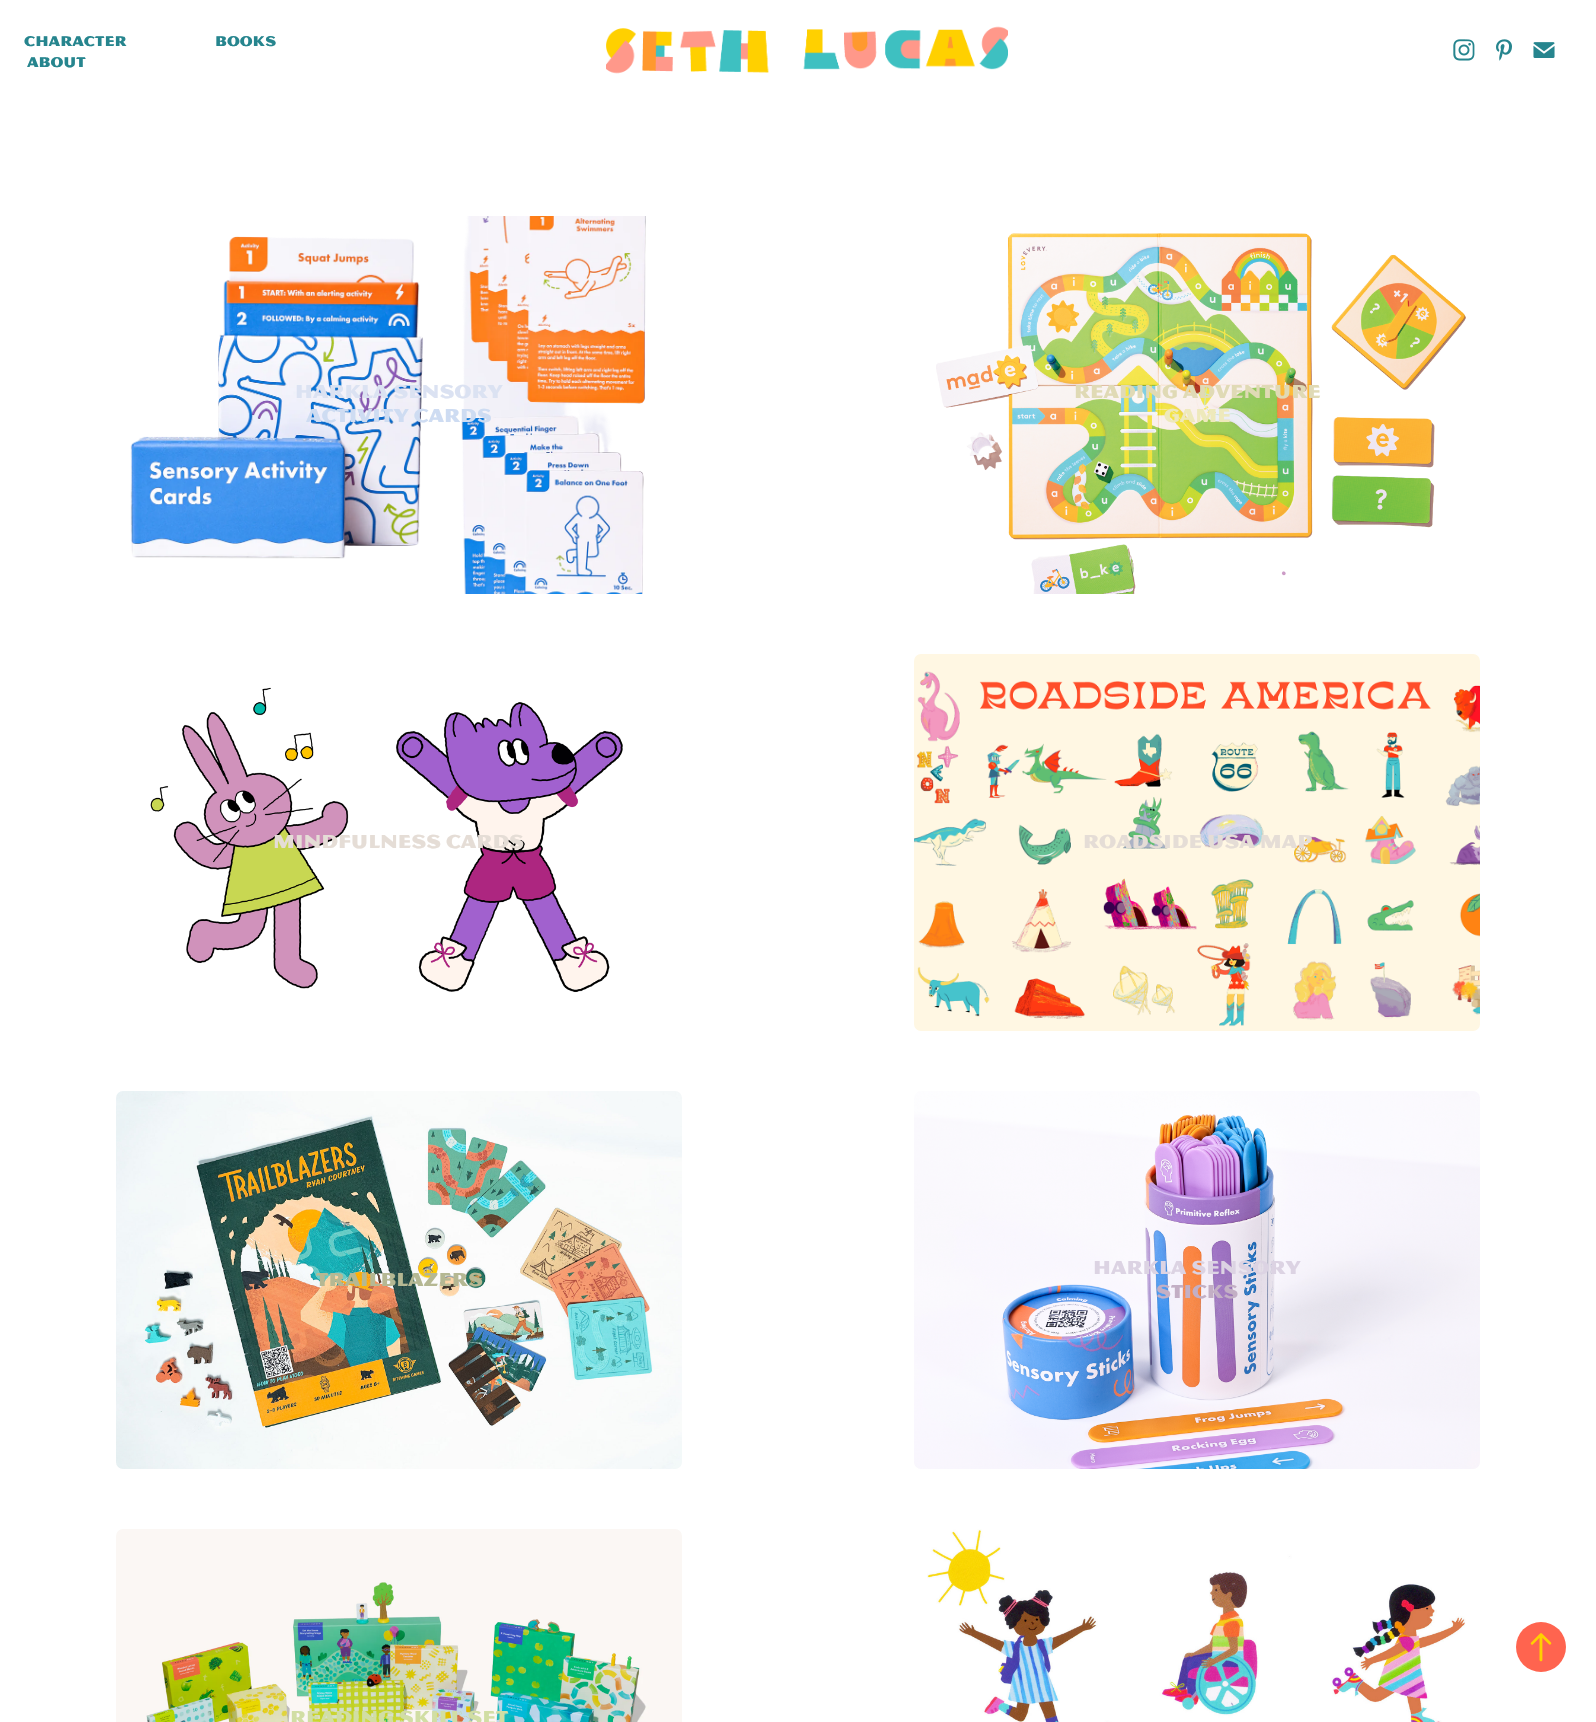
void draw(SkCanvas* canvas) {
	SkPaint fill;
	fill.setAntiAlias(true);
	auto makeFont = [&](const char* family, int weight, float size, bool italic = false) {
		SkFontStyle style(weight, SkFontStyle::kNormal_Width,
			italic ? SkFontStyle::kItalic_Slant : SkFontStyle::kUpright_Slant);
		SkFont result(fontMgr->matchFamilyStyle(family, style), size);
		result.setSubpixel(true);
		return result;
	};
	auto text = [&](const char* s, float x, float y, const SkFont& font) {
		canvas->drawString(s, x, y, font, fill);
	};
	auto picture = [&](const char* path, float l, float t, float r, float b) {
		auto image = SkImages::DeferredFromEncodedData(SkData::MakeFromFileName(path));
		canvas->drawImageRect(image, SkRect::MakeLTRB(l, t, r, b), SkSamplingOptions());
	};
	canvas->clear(0xFFFFFFFF);
	picture("image0.png", 606, 26, 1008, 74);
	picture("image1.png", 1453, 39, 1475, 61);
	picture("image2.png", 1496, 39, 1512, 61);
	picture("image3.png", 1533, 42, 1555, 58);
	picture("image4.png", 130, 216, 646, 594);
	picture("image5.png", 936, 233, 1466, 594);
	picture("image6.png", 150, 687, 623, 993);
	picture("image7.png", 914, 654, 1480, 1031);
	picture("image8.png", 116, 1091, 682, 1469);
	picture("image9.png", 914, 1091, 1480, 1469);
	picture("image10.png", 116, 1529, 682, 1722);
	picture("image11.png", 927, 1529, 1466, 1722);
	fill.setColor(0xFFFF644F);
	canvas->drawCircle(1541, 1647, 25, fill);
	picture("image12.png", 1530, 1633, 1552, 1662);
	auto font1 = makeFont("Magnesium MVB", 400, 15);
	fill.setColor(0xFF26858E);
	text("Character", 24, 46, font1);
	text("Books", 215, 46, font1);
	text("About", 27, 67, font1);
	auto font2 = makeFont("Magnesium MVB", 400, 20);
	fill.setColor(0xFFDBE2F2);
	text("Harkla Sensory", 295, 398, font2);
	fill.setColor(0xFFCEDCF2);
	text("Activity Cards", 306, 422, font2);
	fill.setColor(0xFFE0DAB5);
	text("Reading Adventure", 1074, 398, font2);
	fill.setColor(0xFFEEE9BB);
	text("Game", 1164, 422, font2);
	fill.setColor(0xFFE5DDD6);
	text("Mindfulness Cards", 273, 848, font2);
	text("Roadside USA map", 1083, 848, font2);
	fill.setColor(0xFFB5B893);
	text("Trailblazers", 316, 1286, font2);
	fill.setColor(0xFFDCD3E3);
	text("Harkla Sensory", 1093, 1274, font2);
	fill.setColor(0xFFC3AFC5);
	text("Sticks", 1156, 1298, font2);
	fill.setColor(0xFFD1DEA4);
	text("Reading Skill Set", 290, 1724, font2);
}
